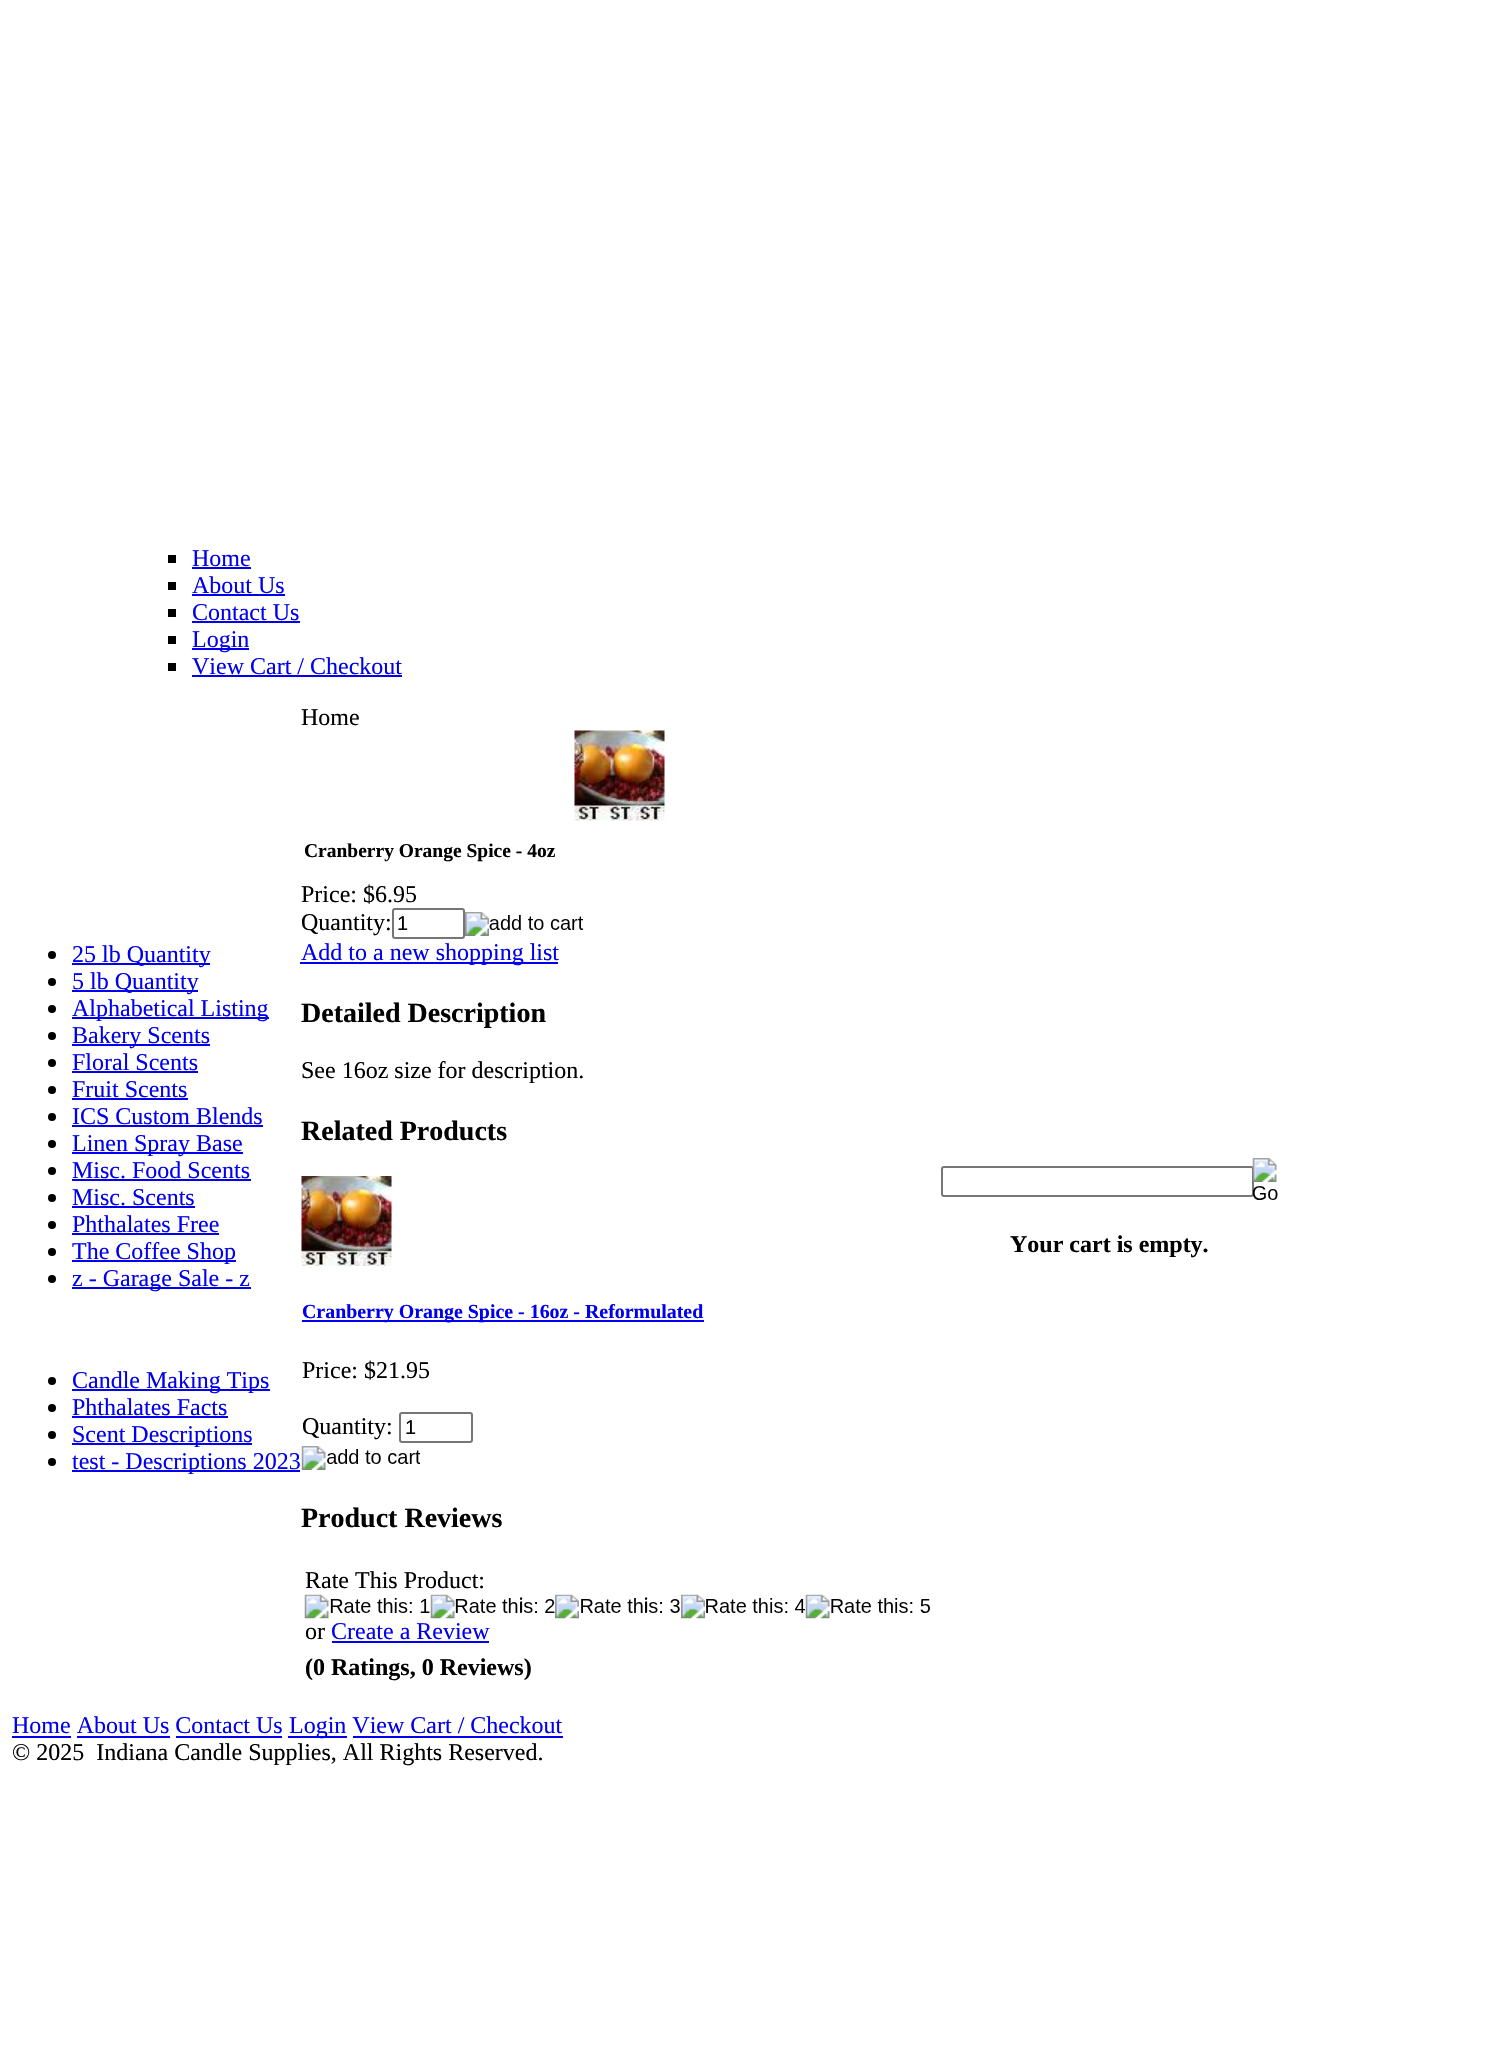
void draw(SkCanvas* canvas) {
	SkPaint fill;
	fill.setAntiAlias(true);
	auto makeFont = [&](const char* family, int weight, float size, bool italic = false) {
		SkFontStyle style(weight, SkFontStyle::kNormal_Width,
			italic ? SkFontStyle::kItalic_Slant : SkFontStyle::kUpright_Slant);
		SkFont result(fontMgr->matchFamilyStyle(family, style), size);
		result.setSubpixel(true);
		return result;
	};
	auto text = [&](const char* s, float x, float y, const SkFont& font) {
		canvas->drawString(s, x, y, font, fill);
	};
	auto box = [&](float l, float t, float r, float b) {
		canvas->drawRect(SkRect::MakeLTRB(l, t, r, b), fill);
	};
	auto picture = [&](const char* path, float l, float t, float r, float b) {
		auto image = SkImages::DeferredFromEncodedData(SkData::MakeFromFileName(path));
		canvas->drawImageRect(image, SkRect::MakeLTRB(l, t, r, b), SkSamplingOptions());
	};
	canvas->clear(0xFFFFFFFF);
	fill.setColor(0xFF000000);
	box(168, 555, 176, 563);
	fill.setColor(0xFF0000EE);
	box(192, 567, 251, 569);
	fill.setColor(0xFF000000);
	box(168, 582, 176, 590);
	fill.setColor(0xFF0000EE);
	box(192, 594, 285, 596);
	fill.setColor(0xFF000000);
	box(168, 609, 176, 617);
	fill.setColor(0xFF0000EE);
	box(192, 621, 300, 623);
	fill.setColor(0xFF000000);
	box(168, 636, 176, 644);
	fill.setColor(0xFF0000EE);
	box(192, 648, 249, 650);
	fill.setColor(0xFF000000);
	box(168, 663, 176, 671);
	fill.setColor(0xFF0000EE);
	box(192, 675, 402, 677);
	fill.setColor(0xFF000000);
	canvas->drawCircle(52, 955, 4, fill);
	fill.setColor(0xFF0000EE);
	box(72, 963, 210, 965);
	fill.setColor(0xFF000000);
	canvas->drawCircle(52, 982, 4, fill);
	fill.setColor(0xFF0000EE);
	box(72, 990, 198, 992);
	fill.setColor(0xFF000000);
	canvas->drawCircle(52, 1009, 4, fill);
	fill.setColor(0xFF0000EE);
	box(72, 1017, 269, 1019);
	fill.setColor(0xFF000000);
	canvas->drawCircle(52, 1036, 4, fill);
	fill.setColor(0xFF0000EE);
	box(72, 1044, 210, 1046);
	fill.setColor(0xFF000000);
	canvas->drawCircle(52, 1063, 4, fill);
	fill.setColor(0xFF0000EE);
	box(72, 1071, 198, 1073);
	fill.setColor(0xFF000000);
	canvas->drawCircle(52, 1090, 4, fill);
	fill.setColor(0xFF0000EE);
	box(72, 1098, 188, 1100);
	fill.setColor(0xFF000000);
	canvas->drawCircle(52, 1117, 4, fill);
	fill.setColor(0xFF0000EE);
	box(72, 1125, 263, 1127);
	fill.setColor(0xFF000000);
	canvas->drawCircle(52, 1144, 4, fill);
	fill.setColor(0xFF0000EE);
	box(72, 1152, 243, 1154);
	fill.setColor(0xFF000000);
	canvas->drawCircle(52, 1171, 4, fill);
	fill.setColor(0xFF0000EE);
	box(72, 1179, 251, 1181);
	fill.setColor(0xFF000000);
	canvas->drawCircle(52, 1198, 4, fill);
	fill.setColor(0xFF0000EE);
	box(72, 1206, 195, 1208);
	fill.setColor(0xFF000000);
	canvas->drawCircle(52, 1225, 4, fill);
	fill.setColor(0xFF0000EE);
	box(72, 1233, 219, 1235);
	fill.setColor(0xFF000000);
	canvas->drawCircle(52, 1252, 4, fill);
	fill.setColor(0xFF0000EE);
	box(72, 1260, 236, 1262);
	fill.setColor(0xFF000000);
	canvas->drawCircle(52, 1279, 4, fill);
	fill.setColor(0xFF0000EE);
	box(72, 1287, 251, 1289);
	fill.setColor(0xFF000000);
	canvas->drawCircle(52, 1381, 4, fill);
	fill.setColor(0xFF0000EE);
	box(72, 1389, 270, 1391);
	fill.setColor(0xFF000000);
	canvas->drawCircle(52, 1408, 4, fill);
	fill.setColor(0xFF0000EE);
	box(72, 1416, 228, 1418);
	fill.setColor(0xFF000000);
	canvas->drawCircle(52, 1435, 4, fill);
	fill.setColor(0xFF0000EE);
	box(72, 1443, 252, 1445);
	fill.setColor(0xFF000000);
	canvas->drawCircle(52, 1462, 4, fill);
	fill.setColor(0xFF0000EE);
	box(72, 1470, 300, 1472);
	picture("image0.png", 574, 730, 665, 821);
	fill.setStyle(SkPaint::kStroke_Style);
	fill.setStrokeWidth(2);
	fill.setColor(0xFF767676);
	canvas->drawRoundRect(SkRect::MakeLTRB(393, 909, 464, 938), 2, 2, fill);
	picture("image1.png", 465, 912, 584, 936);
	fill.setStyle(SkPaint::kFill_Style);
	fill.setColor(0xFF0000EE);
	box(300, 962, 558, 964);
	picture("image2.png", 301, 1176, 392, 1266);
	box(302, 1320, 704, 1322);
	fill.setStyle(SkPaint::kStroke_Style);
	fill.setColor(0xFF767676);
	canvas->drawRoundRect(SkRect::MakeLTRB(400, 1413, 472, 1442), 2, 2, fill);
	picture("image3.png", 301, 1446, 420, 1470);
	picture("image4.png", 304, 1594, 430, 1619);
	picture("image5.png", 430, 1594, 555, 1619);
	picture("image6.png", 555, 1594, 680, 1619);
	picture("image7.png", 681, 1594, 805, 1619);
	picture("image8.png", 805, 1594, 930, 1619);
	fill.setStyle(SkPaint::kFill_Style);
	fill.setColor(0xFF0000EE);
	box(332, 1641, 489, 1643);
	fill.setStyle(SkPaint::kStroke_Style);
	fill.setColor(0xFF767676);
	canvas->drawRoundRect(SkRect::MakeLTRB(942, 1167, 1253, 1196), 2, 2, fill);
	picture("image9.png", 1252, 1158, 1278, 1200);
	fill.setStyle(SkPaint::kFill_Style);
	fill.setColor(0xFF0000EE);
	box(12, 1736, 71, 1738);
	box(288, 1736, 347, 1738);
	box(77, 1736, 170, 1738);
	box(176, 1736, 282, 1738);
	box(353, 1736, 563, 1738);
	auto font1 = makeFont("Liberation Serif", 400, 24);
	text("Home", 192, 566, font1);
	text("About Us", 192, 593, font1);
	text("Contact Us", 192, 620, font1);
	text("Login", 192, 647, font1);
	text("View Cart / Checkout", 192, 674, font1);
	text("25 lb Quantity", 72, 962, font1);
	text("5 lb Quantity", 72, 989, font1);
	text("Alphabetical Listing", 72, 1016, font1);
	text("Bakery Scents", 72, 1043, font1);
	text("Floral Scents", 72, 1070, font1);
	text("Fruit Scents", 72, 1097, font1);
	text("ICS Custom Blends", 72, 1124, font1);
	text("Linen Spray Base", 72, 1151, font1);
	text("Misc. Food Scents", 72, 1178, font1);
	text("Misc. Scents", 72, 1205, font1);
	text("Phthalates Free", 72, 1232, font1);
	text("The Coffee Shop", 72, 1259, font1);
	text("z - Garage Sale - z", 72, 1286, font1);
	text("Candle Making Tips", 72, 1388, font1);
	text("Phthalates Facts", 72, 1415, font1);
	text("Scent Descriptions", 72, 1442, font1);
	text("test - Descriptions 2023", 72, 1469, font1);
	fill.setColor(0xFF000000);
	text("Home", 301, 725, font1);
	auto font2 = makeFont("Liberation Serif", 700, 19.5f);
	text("Cranberry Orange Spice - 4oz", 304, 857, font2);
	text("Price: $6.95", 301, 902, font1);
	text("Quantity:", 301, 930, font1);
	auto font3 = makeFont("Liberation Sans", 400, 20);
	text("1", 397, 930, font3);
	fill.setColor(0xFF0000EE);
	text("Add to a new shopping list", 301, 960, font1);
	auto font4 = makeFont("Liberation Serif", 700, 28);
	fill.setColor(0xFF000000);
	text("Detailed Description", 301, 1022, font4);
	text("See 16oz size for description.", 301, 1078, font1);
	text("Related Products", 301, 1140, font4);
	auto font5 = makeFont("Liberation Serif", 700, 19.9f);
	fill.setColor(0xFF0000EE);
	text("Cranberry Orange Spice - 16oz - Reformulated", 302, 1318, font5);
	fill.setColor(0xFF000000);
	text("Price: $21.95", 302, 1378, font1);
	text("Quantity:", 302, 1434, font1);
	text("1", 405, 1434, font3);
	text("Product Reviews", 301, 1527, font4);
	text("Rate This Product:", 305, 1588, font1);
	text("i", 519, 1612, font3);
	text("i", 644, 1612, font3);
	text("or", 305, 1639, font1);
	fill.setColor(0xFF0000EE);
	text("Create a Review", 331, 1639, font1);
	auto font6 = makeFont("Liberation Serif", 700, 24);
	fill.setColor(0xFF000000);
	text("(0 Ratings, 0 Reviews)", 305, 1675, font6);
	text("Your cart is empty.", 1010, 1252, font6);
	fill.setColor(0xFF0000EE);
	text("Home About Us Contact Us", 12, 1733, font1);
	text("Login View Cart / Checkout", 289, 1733, font1);
	fill.setColor(0xFF000000);
	text("© 2025  Indiana Candle Supplies, All Rights Reserved.", 12, 1760, font1);
}
